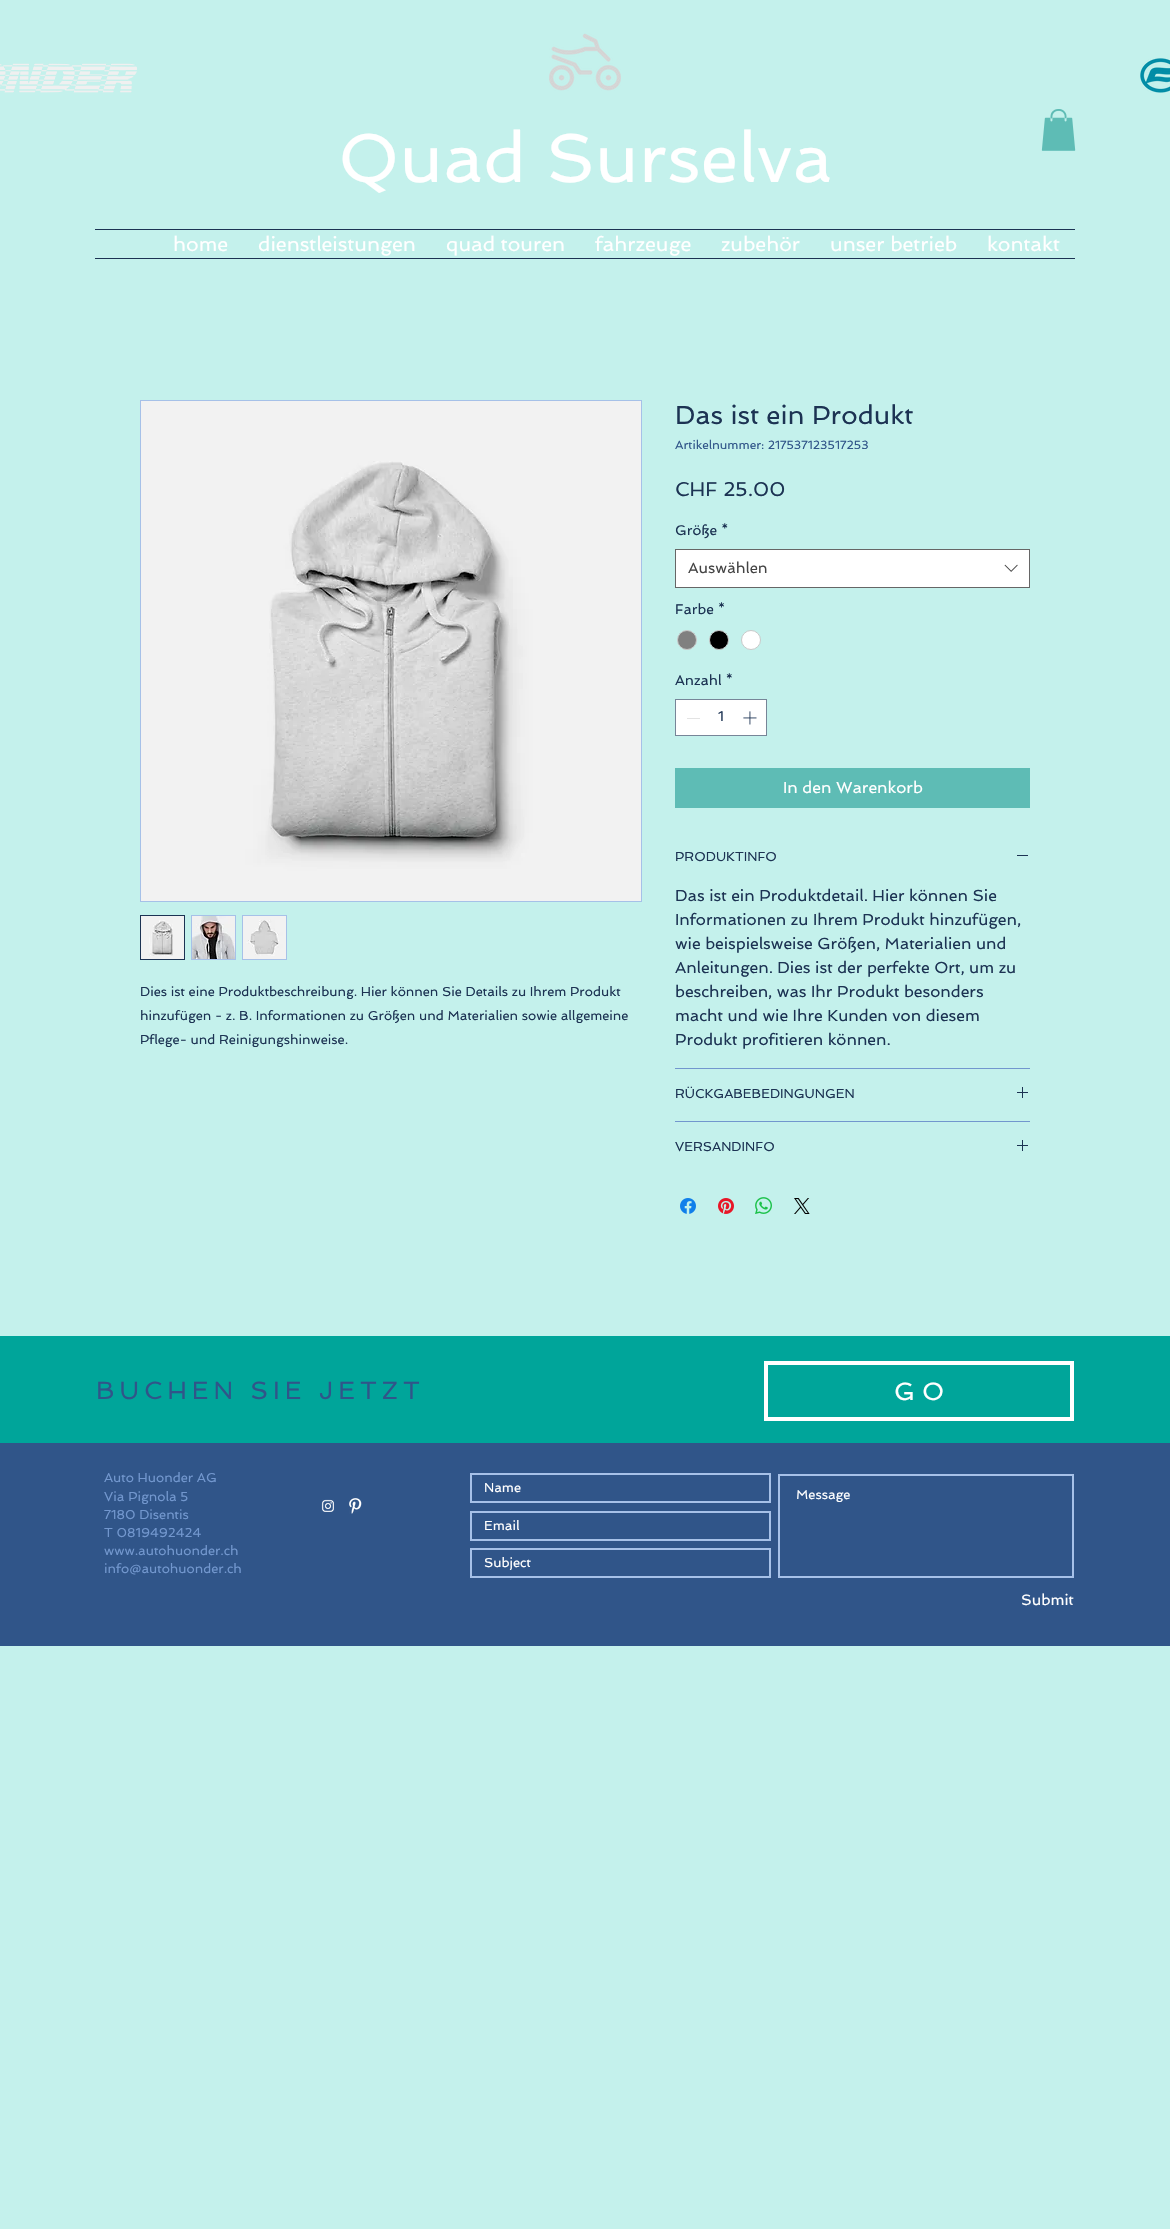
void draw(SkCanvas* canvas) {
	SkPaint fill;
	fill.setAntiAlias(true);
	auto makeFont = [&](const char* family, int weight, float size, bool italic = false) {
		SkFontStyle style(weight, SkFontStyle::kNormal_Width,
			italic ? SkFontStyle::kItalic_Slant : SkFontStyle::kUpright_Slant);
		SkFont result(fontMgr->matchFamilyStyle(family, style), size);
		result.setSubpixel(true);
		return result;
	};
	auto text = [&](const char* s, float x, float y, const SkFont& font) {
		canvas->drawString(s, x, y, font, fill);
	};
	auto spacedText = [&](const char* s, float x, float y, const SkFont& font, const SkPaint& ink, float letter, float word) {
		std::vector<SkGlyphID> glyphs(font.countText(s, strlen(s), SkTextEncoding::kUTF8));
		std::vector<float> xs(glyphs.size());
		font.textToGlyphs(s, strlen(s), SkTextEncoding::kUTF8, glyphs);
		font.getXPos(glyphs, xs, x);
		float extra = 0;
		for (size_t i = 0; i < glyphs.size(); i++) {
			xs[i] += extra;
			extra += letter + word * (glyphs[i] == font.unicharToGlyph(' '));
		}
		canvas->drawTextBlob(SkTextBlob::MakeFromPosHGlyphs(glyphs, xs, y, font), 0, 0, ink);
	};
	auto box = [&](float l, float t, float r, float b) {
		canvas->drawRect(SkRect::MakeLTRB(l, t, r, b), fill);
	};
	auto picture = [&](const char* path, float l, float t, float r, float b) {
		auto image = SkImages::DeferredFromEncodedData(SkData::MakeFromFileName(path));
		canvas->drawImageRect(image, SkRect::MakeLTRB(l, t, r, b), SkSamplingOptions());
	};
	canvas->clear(0xFFC4F1EC);
	picture("image0.png", 0, 63, 137, 93);
	picture("image1.png", 549, 33, 621, 91);
	picture("image2.png", 1140, 58, 1170, 93);
	picture("image3.png", 1041, 109, 1076, 151);
	fill.setColor(0xFF1C3353);
	box(95, 229, 1075, 230);
	box(95, 258, 1075, 259);
	fill.setStyle(SkPaint::kStroke_Style);
	fill.setStrokeWidth(1);
	fill.setColor(0xFFA6C1E8);
	canvas->drawRect(SkRect::MakeLTRB(140.5f, 400.5f, 641.5f, 901.5f), fill);
	picture("image4.png", 141, 401, 641, 901);
	fill.setColor(0xFF1C3353);
	canvas->drawRect(SkRect::MakeLTRB(140.5f, 915.5f, 184.5f, 959.5f), fill);
	picture("image5.png", 141, 916, 184, 959);
	fill.setStyle(SkPaint::kFill_Style);
	fill.setColor(0xFFA6C1E8);
	box(191, 915, 236, 960);
	picture("image6.png", 192, 916, 235, 959);
	box(242, 915, 287, 960);
	picture("image7.png", 243, 916, 286, 959);
	fill.setColor(0xFFFFFFFF);
	canvas->drawRect(SkRect::MakeLTRB(675.5f, 549.5f, 1029.5f, 587.5f), fill);
	fill.setStyle(SkPaint::kStroke_Style);
	fill.setColor(0xFF666666);
	canvas->drawRect(SkRect::MakeLTRB(675.5f, 549.5f, 1029.5f, 587.5f), fill);
	picture("image8.png", 1004, 564, 1018, 572);
	fill.setStyle(SkPaint::kFill_Style);
	fill.setColor(0xFF808080);
	canvas->drawCircle(687, 640, 9.5f, fill);
	fill.setStyle(SkPaint::kStroke_Style);
	fill.setColor(0xFFC9C9C9);
	canvas->drawCircle(687, 640, 9.5f, fill);
	fill.setStyle(SkPaint::kFill_Style);
	fill.setColor(0xFF000000);
	canvas->drawCircle(719, 640, 9.5f, fill);
	fill.setStyle(SkPaint::kStroke_Style);
	fill.setColor(0xFFC9C9C9);
	canvas->drawCircle(719, 640, 9.5f, fill);
	fill.setStyle(SkPaint::kFill_Style);
	fill.setColor(0xFFFFFFFF);
	canvas->drawCircle(751, 640, 9.5f, fill);
	fill.setStyle(SkPaint::kStroke_Style);
	fill.setColor(0xFFC9C9C9);
	canvas->drawCircle(751, 640, 9.5f, fill);
	fill.setStyle(SkPaint::kFill_Style);
	fill.setColor(0xFFFFFFFF);
	canvas->drawRect(SkRect::MakeLTRB(675.5f, 699.5f, 766.5f, 735.5f), fill);
	fill.setStyle(SkPaint::kStroke_Style);
	fill.setColor(0xFF778598);
	canvas->drawRect(SkRect::MakeLTRB(675.5f, 699.5f, 766.5f, 735.5f), fill);
	fill.setStyle(SkPaint::kFill_Style);
	fill.setColor(0xFFE3E3E3);
	box(687, 718, 700, 719);
	picture("image9.png", 743, 711, 757, 725);
	fill.setColor(0xFF5EBCB5);
	box(675, 768, 1030, 808);
	fill.setColor(0xFF7297CE);
	box(675, 1068, 1030, 1069);
	fill.setColor(0xFF1C3353);
	box(1017, 855, 1028, 856);
	fill.setColor(0xFF7297CE);
	box(675, 1121, 1030, 1122);
	picture("image10.png", 1017, 1087, 1028, 1098);
	picture("image10.png", 1017, 1140, 1028, 1151);
	picture("image11.png", 680, 1198, 696, 1214);
	picture("image12.png", 718, 1198, 734, 1214);
	picture("image13.png", 755, 1197, 772, 1214);
	picture("image14.png", 794, 1198, 810, 1214);
	fill.setColor(0xFF00A59A);
	box(0, 1336, 1170, 1443);
	fill.setStyle(SkPaint::kStroke_Style);
	fill.setStrokeWidth(4);
	fill.setColor(0xFFFFFFFF);
	canvas->drawRect(SkRect::MakeLTRB(766, 1363, 1072, 1419), fill);
	fill.setStyle(SkPaint::kFill_Style);
	fill.setColor(0xFF305589);
	box(0, 1443, 1170, 1646);
	picture("image15.png", 321, 1499, 334, 1512);
	picture("image16.png", 349, 1498, 362, 1514);
	fill.setStyle(SkPaint::kStroke_Style);
	fill.setStrokeWidth(2);
	fill.setColor(0xFFA6C1E8);
	canvas->drawRect(SkRect::MakeLTRB(471, 1474, 770, 1502), fill);
	canvas->drawRect(SkRect::MakeLTRB(779, 1475, 1073, 1577), fill);
	canvas->drawRect(SkRect::MakeLTRB(471, 1512, 770, 1540), fill);
	canvas->drawRect(SkRect::MakeLTRB(471, 1549, 770, 1577), fill);
	auto font1 = makeFont("Spinnaker", 400, 69);
	fill.setStyle(SkPaint::kFill_Style);
	fill.setColor(0xFFFFFFFF);
	text("Quad Surselva", 338, 182, font1);
	auto font2 = makeFont("Spinnaker", 400, 20);
	text("home", 173, 251, font2);
	text("dienstleistungen", 258, 251, font2);
	text("quad touren", 446, 251, font2);
	text("fahrzeuge", 595, 251, font2);
	text("zubehör", 721, 251, font2);
	text("unser betrieb", 830, 251, font2);
	text("kontakt", 987, 251, font2);
	auto font3 = makeFont("Spinnaker", 400, 13);
	fill.setColor(0xFF1C3353);
	text("Dies ist eine Produktbeschreibung. Hier können Sie Details zu Ihrem Produkt", 140, 996, font3);
	text("hinzufügen - z. B. Informationen zu Größen und Materialien sowie allgemeine", 140, 1020, font3);
	text("Pflege- und Reinigungshinweise.", 140, 1044, font3);
	auto font4 = makeFont("Spinnaker", 400, 26);
	text("Das ist ein Produkt", 675, 424, font4);
	auto font5 = makeFont("Spinnaker", 400, 12);
	fill.setColor(0xFF305589);
	text("Artikelnummer: 217537123517253", 675, 449, font5);
	fill.setColor(0xFF1C3353);
	text("CHF 25.00", 675, 496, font2);
	auto font6 = makeFont("Spinnaker", 400, 14);
	text("Größe *", 675, 535, font6);
	auto font7 = makeFont("Spinnaker", 400, 15);
	fill.setColor(0xFF444444);
	text("Auswählen", 688, 573, font7);
	fill.setColor(0xFF1C3353);
	text("Farbe *", 675, 614, font6);
	text("Anzahl *", 675, 685, font6);
	text("1", 718, 721, font6);
	auto font8 = makeFont("Spinnaker", 400, 16);
	fill.setColor(0xFFFFFFFF);
	text("In den Warenkorb", 783, 793, font8);
	fill.setColor(0xFF1C3353);
	text("PRODUKTINFO", 675, 861, font3);
	text("Das ist ein Produktdetail. Hier können Sie", 675, 901, font8);
	text("Informationen zu Ihrem Produkt hinzufügen,", 675, 925, font8);
	text("wie beispielsweise Größen, Materialien und", 675, 949, font8);
	text("Anleitungen. Dies ist der perfekte Ort, um zu", 675, 973, font8);
	text("beschreiben, was Ihr Produkt besonders", 675, 997, font8);
	text("macht und wie Ihre Kunden von diesem", 675, 1021, font8);
	text("Produkt profitieren können.", 675, 1045, font8);
	text("RÜCKGABEBEDINGUNGEN", 675, 1098, font3);
	text("VERSANDINFO", 675, 1151, font3);
	auto font9 = makeFont("Spinnaker", 400, 25);
	fill.setColor(0xFF305589);
	spacedText("BUCHEN SIE JETZT", 96, 1399, font9, fill, 5, 0);
	fill.setColor(0xFFFFFFFF);
	text("G O", 894, 1400, font9);
	fill.setColor(0xFF7297CE);
	text("Auto Huonder AG", 104, 1482, font3);
	text("Via Pignola 5", 104, 1501, font3);
	text("7180 Disentis", 104, 1519, font3);
	text("T 0819492424", 104, 1537, font3);
	text("www.autohuonder.ch", 104, 1555, font3);
	text("info@autohuonder.ch", 104, 1573, font3);
	fill.setColor(0xFFFFFFFF);
	text("Name", 484, 1492, font3);
	text("Message", 796, 1499, font3);
	text("Email", 484, 1530, font3);
	text("Subject", 484, 1567, font3);
	text("Submit", 1021, 1605, font7);
}
